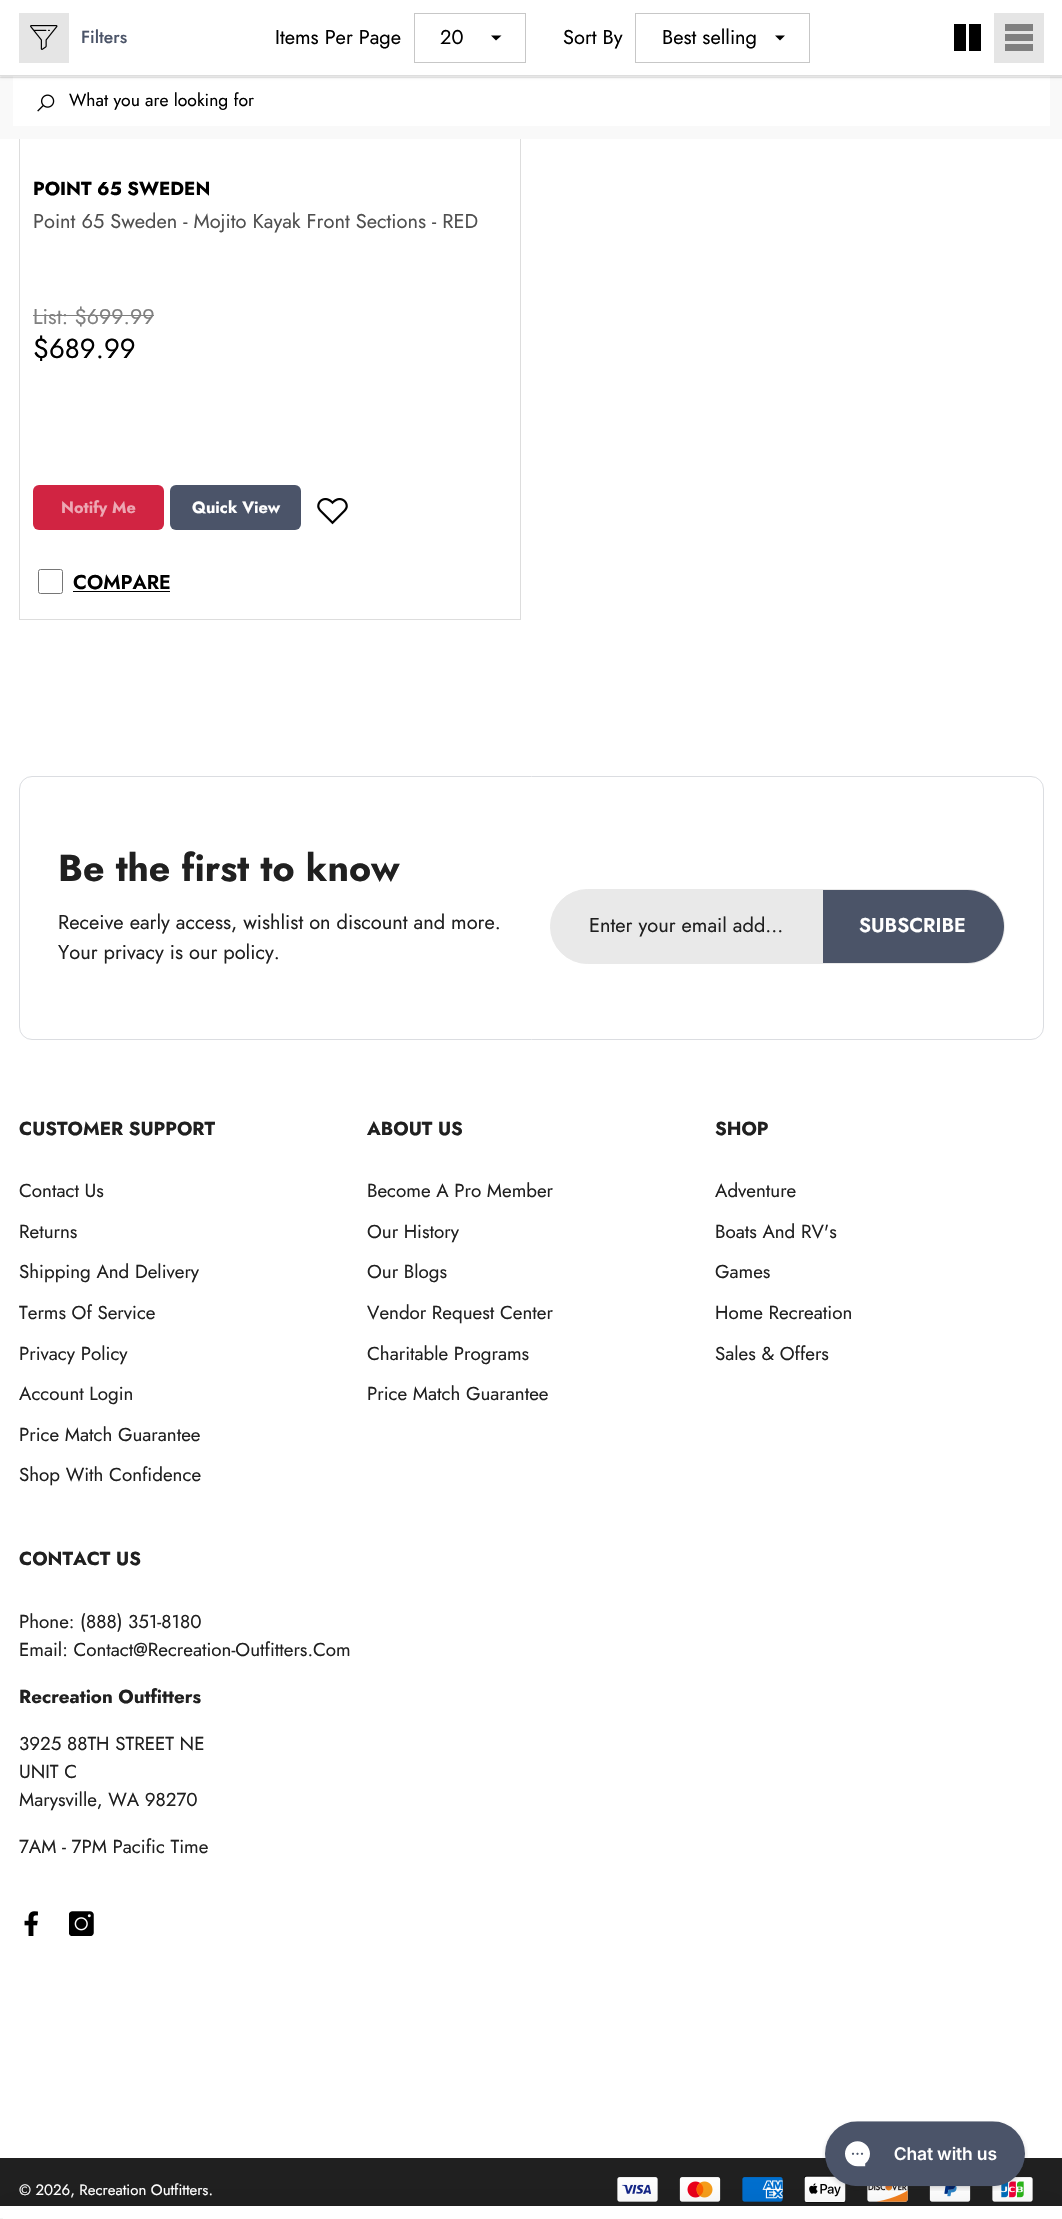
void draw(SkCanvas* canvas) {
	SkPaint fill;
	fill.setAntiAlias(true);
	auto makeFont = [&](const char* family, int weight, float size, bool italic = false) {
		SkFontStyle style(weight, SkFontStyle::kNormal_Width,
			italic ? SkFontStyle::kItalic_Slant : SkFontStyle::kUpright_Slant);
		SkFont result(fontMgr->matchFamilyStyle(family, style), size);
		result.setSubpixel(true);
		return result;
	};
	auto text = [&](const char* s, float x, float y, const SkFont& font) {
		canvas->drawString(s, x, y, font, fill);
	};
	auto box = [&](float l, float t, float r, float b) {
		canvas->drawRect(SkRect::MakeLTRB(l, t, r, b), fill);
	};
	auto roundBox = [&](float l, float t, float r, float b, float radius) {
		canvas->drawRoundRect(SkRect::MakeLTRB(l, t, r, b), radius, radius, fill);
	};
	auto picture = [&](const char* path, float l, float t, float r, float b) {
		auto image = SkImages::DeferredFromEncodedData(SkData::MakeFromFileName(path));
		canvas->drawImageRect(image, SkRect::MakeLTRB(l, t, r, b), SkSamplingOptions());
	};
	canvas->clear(0xFFFFFFFF);
	fill.setStyle(SkPaint::kStroke_Style);
	fill.setStrokeWidth(1);
	fill.setColor(0xFFDDDDDD);
	canvas->drawRect(SkRect::MakeLTRB(19.5f, -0.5f, 520.5f, 619.5f), fill);
	fill.setStyle(SkPaint::kFill_Style);
	fill.setColor(0xFFF9F9F9);
	box(0, 76, 1062, 139);
	fill.setColor(0xFFFFFFFF);
	box(13, 76, 1050, 126);
	fill.setColor(0x1A000000);
	fill.setMaskFilter(SkMaskFilter::MakeBlur(kNormal_SkBlurStyle, 1));
	canvas->drawRect(SkRect::MakeLTRB(0, 1, 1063, 78), fill);
	fill.setMaskFilter(nullptr);
	fill.setStyle(SkPaint::kStroke_Style);
	fill.setColor(0x0F000000);
	canvas->drawRect(SkRect::MakeLTRB(-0.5f, -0.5f, 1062.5f, 77.5f), fill);
	fill.setStyle(SkPaint::kFill_Style);
	fill.setColor(0xFFFFFFFF);
	box(0, 0, 1062, 75);
	fill.setColor(0xFFDEDEDE);
	box(0, 75, 1062, 76);
	fill.setColor(0xFFE5E5E5);
	box(19, 13, 69, 63);
	picture("image0.png", 30, 25, 58, 50);
	fill.setStyle(SkPaint::kStroke_Style);
	fill.setColor(0xFFC7C7C7);
	canvas->drawRect(SkRect::MakeLTRB(414.5f, 13.5f, 525.5f, 62.5f), fill);
	fill.setStyle(SkPaint::kFill_Style);
	fill.setColor(0xFF000000);
	canvas->drawPath(SkPathBuilder().moveTo(491, 35.5f).lineTo(496, 40.5f).lineTo(501.5f, 35.5f).close().detach(), fill);
	fill.setStyle(SkPaint::kStroke_Style);
	fill.setColor(0xFFC7C7C7);
	canvas->drawRect(SkRect::MakeLTRB(635.5f, 13.5f, 809.5f, 62.5f), fill);
	fill.setStyle(SkPaint::kFill_Style);
	fill.setColor(0xFF000000);
	canvas->drawPath(SkPathBuilder().moveTo(775, 35.5f).lineTo(780, 40.5f).lineTo(785, 35.5f).close().detach(), fill);
	box(969, 24, 981, 51);
	box(954, 24, 966, 51);
	fill.setColor(0xFFE5E5E5);
	box(994, 13, 1044, 63);
	fill.setColor(0xFF808080);
	box(1005, 44, 1033, 51);
	box(1005, 34, 1033, 41);
	box(1005, 24, 1033, 31);
	box(33, 315, 154, 316);
	fill.setColor(0xFFD12442);
	roundBox(33, 485, 164, 530, 6);
	fill.setColor(0xFF4B5469);
	roundBox(170, 485, 301, 530, 6);
	picture("image1.png", 317, 498, 348, 525);
	fill.setStyle(SkPaint::kStroke_Style);
	fill.setColor(0xFF767676);
	canvas->drawRoundRect(SkRect::MakeLTRB(38.5f, 569.5f, 62.5f, 593.5f), 2, 2, fill);
	fill.setStyle(SkPaint::kFill_Style);
	fill.setColor(0xFF000000);
	box(73, 591, 170, 592);
	picture("image2.png", 37, 94, 55, 112);
	fill.setStyle(SkPaint::kStroke_Style);
	fill.setColor(0xFFDBDDE1);
	canvas->drawRoundRect(SkRect::MakeLTRB(19.5f, 776.5f, 1043.5f, 1039.5f), 12.5f, 12.5f, fill);
	fill.setStyle(SkPaint::kFill_Style);
	fill.setColor(0xFFE9E9E9);
	canvas->drawRoundRect(SkRect::MakeLTRB(550.5f, 889.5f, 1004.5f, 963.5f), 37, 37, fill);
	fill.setStyle(SkPaint::kStroke_Style);
	canvas->drawRoundRect(SkRect::MakeLTRB(550.5f, 889.5f, 1004.5f, 963.5f), 37, 37, fill);
	fill.setStyle(SkPaint::kFill_Style);
	fill.setColor(0xFF4B5468);
	canvas->drawPath(SkPathBuilder().moveTo(823, 890).lineTo(967.5f, 890).cubicTo(987.5f, 890, 1004, 906.5f, 1004, 926.5f).cubicTo(1004, 946.5f, 987.5f, 963, 967.5f, 963).lineTo(823, 963).close().detach(), fill);
	picture("image3.png", 24, 1911, 38, 1936);
	picture("image4.png", 69, 1911, 94, 1936);
	fill.setColor(0xFF202020);
	box(0, 2158, 1062, 2206);
	picture("image5.png", 617, 2177, 658, 2202);
	picture("image6.png", 679, 2177, 721, 2202);
	picture("image7.png", 742, 2177, 783, 2202);
	picture("image8.png", 804, 2175, 846, 2203);
	picture("image9.png", 867, 2186, 908, 2202);
	picture("image10.png", 929, 2186, 971, 2202);
	picture("image11.png", 992, 2177, 1033, 2202);
	fill.setColor(0x33000000);
	fill.setMaskFilter(SkMaskFilter::MakeBlur(kNormal_SkBlurStyle, 17));
	canvas->drawRect(SkRect::MakeLTRB(0, 2214, 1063, 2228), fill);
	fill.setMaskFilter(nullptr);
	picture("image12.png", 822, 2121, 1028, 2191);
	fill.setColor(0xFFFFFFFF);
	box(0, 2206, 1062, 2219);
	fill.setColor(0xFFF5F5F5);
	box(0, 2218, 3, 2219);
	auto font1 = makeFont("Jost", 500, 17.5f);
	fill.setColor(0xFF4B5468);
	text("Filters", 81, 43, font1);
	auto font2 = makeFont("Jost", 400, 20);
	fill.setColor(0xFF000000);
	text("Items Per Page", 275, 44, font2);
	text("20", 440, 44, font2);
	text("Sort By", 563, 44, font2);
	text("Best selling", 662, 44, font2);
	auto font3 = makeFont("Jost", 700, 18.75f);
	text("POINT 65 SWEDEN", 33, 195, font3);
	fill.setColor(0xFF505050);
	text("Point 65 Sweden - Mojito Kayak Front Sections - RED", 33, 228, font2);
	auto font4 = makeFont("Jost", 400, 21.25f);
	fill.setColor(0xFF808080);
	text("List: $699.99", 33, 324, font4);
	auto font5 = makeFont("Jost", 400, 27.5f);
	fill.setColor(0xFF000000);
	text("$689.99", 33, 358, font5);
	auto font6 = makeFont("Jost", 700, 16.25f);
	fill.setColor(0xFFEDA7B3);
	text("Notify Me", 61, 513, font6);
	fill.setColor(0xFFFFFFFF);
	text("Quick View", 192, 513, font6);
	auto font7 = makeFont("Jost", 600, 20);
	fill.setColor(0xFF000000);
	text("COMPARE", 73, 589, font7);
	auto font8 = makeFont("Jost", 400, 17.5f);
	text("What you are looking for", 69, 106, font8);
	auto font9 = makeFont("Jost", 700, 37.5f);
	fill.setColor(0xFF202020);
	text("Be the first to know", 58, 881, font9);
	text("Receive early access, wishlist on discount and more.", 58, 929, font2);
	text("Your privacy is our policy.", 58, 959, font2);
	text("Enter your email add…", 589, 932, font2);
	fill.setColor(0xFFFFFFFF);
	text("SUBSCRIBE", 859, 932, font7);
	fill.setColor(0xFF202020);
	text("CUSTOMER SUPPORT", 19, 1135, font3);
	auto font10 = makeFont("Jost", 400, 18.75f);
	text("Contact Us", 19, 1197, font10);
	text("Returns", 19, 1238, font10);
	text("Shipping And Delivery", 19, 1278, font10);
	text("Terms Of Service", 19, 1319, font10);
	text("Privacy Policy", 19, 1360, font10);
	text("Account Login", 19, 1400, font10);
	text("Price Match Guarantee", 19, 1441, font10);
	text("Shop With Confidence", 19, 1481, font10);
	text("ABOUT US", 367, 1135, font3);
	text("Become A Pro Member", 367, 1197, font10);
	text("Our History", 367, 1238, font10);
	text("Our Blogs", 367, 1278, font10);
	text("Vendor Request Center", 367, 1319, font10);
	text("Charitable Programs", 367, 1360, font10);
	text("Price Match Guarantee", 367, 1400, font10);
	text("SHOP", 715, 1135, font3);
	text("Adventure", 715, 1197, font10);
	text("Boats And RV's", 715, 1238, font10);
	text("Games", 715, 1278, font10);
	text("Home Recreation", 715, 1319, font10);
	text("Sales & Offers", 715, 1360, font10);
	text("CONTACT US", 19, 1565, font3);
	text("Phone: (888) 351-8180", 19, 1628, font10);
	text("Email: Contact@Recreation-Outfitters.Com", 19, 1656, font10);
	text("Recreation Outfitters", 19, 1703, font3);
	text("3925 88TH STREET NE", 19, 1750, font10);
	text("UNIT C", 19, 1778, font10);
	text("Marysville, WA 98270", 19, 1806, font10);
	text("7AM - 7PM Pacific Time", 19, 1853, font10);
	auto font11 = makeFont("Jost", 400, 15);
	fill.setColor(0xFFFFFFFF);
	text("© 2026, Recreation Outfitters.", 19, 2195, font11);
}
